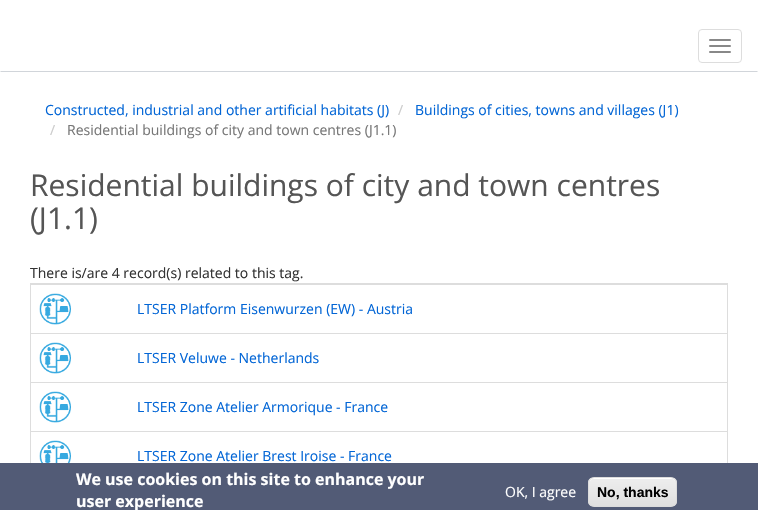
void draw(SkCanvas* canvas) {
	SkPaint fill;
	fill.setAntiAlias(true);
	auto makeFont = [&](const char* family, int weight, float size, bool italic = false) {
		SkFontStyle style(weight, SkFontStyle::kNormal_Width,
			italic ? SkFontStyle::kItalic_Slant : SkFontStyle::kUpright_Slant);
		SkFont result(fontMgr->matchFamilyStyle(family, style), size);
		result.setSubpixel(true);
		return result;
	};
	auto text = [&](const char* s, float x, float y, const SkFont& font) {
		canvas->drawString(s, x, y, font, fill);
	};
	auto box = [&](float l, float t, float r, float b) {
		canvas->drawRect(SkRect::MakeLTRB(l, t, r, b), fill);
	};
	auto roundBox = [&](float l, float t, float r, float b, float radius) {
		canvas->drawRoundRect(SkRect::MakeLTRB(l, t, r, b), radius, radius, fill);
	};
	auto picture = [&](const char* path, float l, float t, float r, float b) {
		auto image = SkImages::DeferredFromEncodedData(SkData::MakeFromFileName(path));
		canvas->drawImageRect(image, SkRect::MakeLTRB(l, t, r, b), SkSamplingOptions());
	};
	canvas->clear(0xFFFFFFFF);
	fill.setColor(0xFFD1D5DA);
	canvas->drawPath(SkPathBuilder().moveTo(758, 72).lineTo(0, 72).lineTo(1, 71).lineTo(757, 71).close().detach(), fill);
	fill.setStyle(SkPaint::kStroke_Style);
	fill.setStrokeWidth(1);
	fill.setColor(0xFFDDDDDD);
	canvas->drawRoundRect(SkRect::MakeLTRB(698.5f, 29.5f, 741.5f, 62.5f), 3.5f, 3.5f, fill);
	fill.setStyle(SkPaint::kFill_Style);
	fill.setColor(0xFF888888);
	roundBox(709, 39, 731, 41, 1);
	roundBox(709, 45, 731, 47, 1);
	roundBox(709, 51, 731, 53, 1);
	fill.setStyle(SkPaint::kStroke_Style);
	fill.setColor(0xFFDDDDDD);
	canvas->drawRect(SkRect::MakeLTRB(30.5f, 283.5f, 727.5f, 480.5f), fill);
	picture("image0.png", 39, 293, 71, 325);
	fill.setStyle(SkPaint::kFill_Style);
	box(31, 284, 727, 285);
	picture("image0.png", 39, 342, 71, 374);
	box(31, 333, 727, 334);
	picture("image0.png", 39, 391, 71, 423);
	box(31, 382, 727, 383);
	picture("image1.png", 39, 440, 71, 463);
	box(31, 431, 727, 432);
	fill.setColor(0xFF525B76);
	box(0, 463, 758, 510);
	canvas->save();
	canvas->clipPath(SkPathBuilder().moveTo(594, 477).lineTo(671, 477).cubicTo(674.5f, 477, 677, 479.5f, 677, 483).lineTo(677, 501).cubicTo(677, 504.5f, 674.5f, 507, 671, 507).lineTo(594, 507).cubicTo(590.5f, 507, 588, 504.5f, 588, 501).lineTo(588, 483).cubicTo(588, 479.5f, 590.5f, 477, 594, 477).close().detach(), true);
	{
		const SkColor colors[] = {0xFFEDEDED, 0xFFDFDFDF};
		const float stops[] = {0.05f, 1};
		const SkPoint ends[] = {{633, 478}, {633, 506}};
		fill.setShader(SkGradientShader::MakeLinear(ends, colors, stops, 2, SkTileMode::kClamp));
		fill.setAlpha(255);
	}
	box(588, 478, 677, 506);
	canvas->restore();
	fill.setShader(nullptr);
	fill.setColor(0xFFFFFFFF);
	canvas->drawPath(SkPathBuilder().moveTo(594, 479).lineTo(671, 479).cubicTo(674, 479, 676, 481, 676, 484).cubicTo(676, 475, 664, 478, 658, 478).lineTo(607, 478).cubicTo(601, 478, 589, 475, 589, 484).cubicTo(589, 481, 591, 479, 594, 479).close().detach(), fill);
	fill.setStyle(SkPaint::kStroke_Style);
	fill.setColor(0xFFDCDCDC);
	canvas->drawRoundRect(SkRect::MakeLTRB(588.5f, 477.5f, 676.5f, 506.5f), 5.5f, 5.5f, fill);
	auto font1 = makeFont("Open Sans", 400, 14);
	fill.setStyle(SkPaint::kFill_Style);
	fill.setColor(0xFF0366D6);
	text("Constructed, industrial and other artificial habitats (J)", 45, 115, font1);
	fill.setColor(0xFFCCCCCC);
	text("/", 398, 115, font1);
	fill.setColor(0xFF0366D6);
	text("Buildings of cities, towns and villages (J1)", 415, 115, font1);
	fill.setColor(0xFFCCCCCC);
	text("/", 50, 135, font1);
	fill.setColor(0xFF777777);
	text("Residential buildings of city and town centres (J1.1)", 67, 135, font1);
	auto font2 = makeFont("Open Sans", 400, 30);
	fill.setColor(0xFF555555);
	text("Residential buildings of city and town centres", 30, 196, font2);
	text("(J1.1)", 30, 229, font2);
	fill.setColor(0xFF333333);
	text("There is/are 4 record(s) related to this tag.", 30, 278, font1);
	fill.setColor(0xFF0366D6);
	text("LTSER Platform Eisenwurzen (EW) - Austria", 137, 314, font1);
	text("LTSER Veluwe - Netherlands", 137, 363, font1);
	text("LTSER Zone Atelier Armorique - France", 137, 412, font1);
	text("LTSER Zone Atelier Brest Iroise - France", 137, 461, font1);
	auto font3 = makeFont("Open Sans", 700, 16);
	fill.setColor(0xFFFFFFFF);
	text("We use cookies on this site to enhance your", 76, 485, font3);
	text("user experience", 76, 507, font3);
	text("OK, I agree", 505, 497, font1);
	auto font4 = makeFont("Liberation Sans", 700, 14);
	fill.setColor(0xFF000000);
	text("No, thanks", 597, 497, font4);
}
